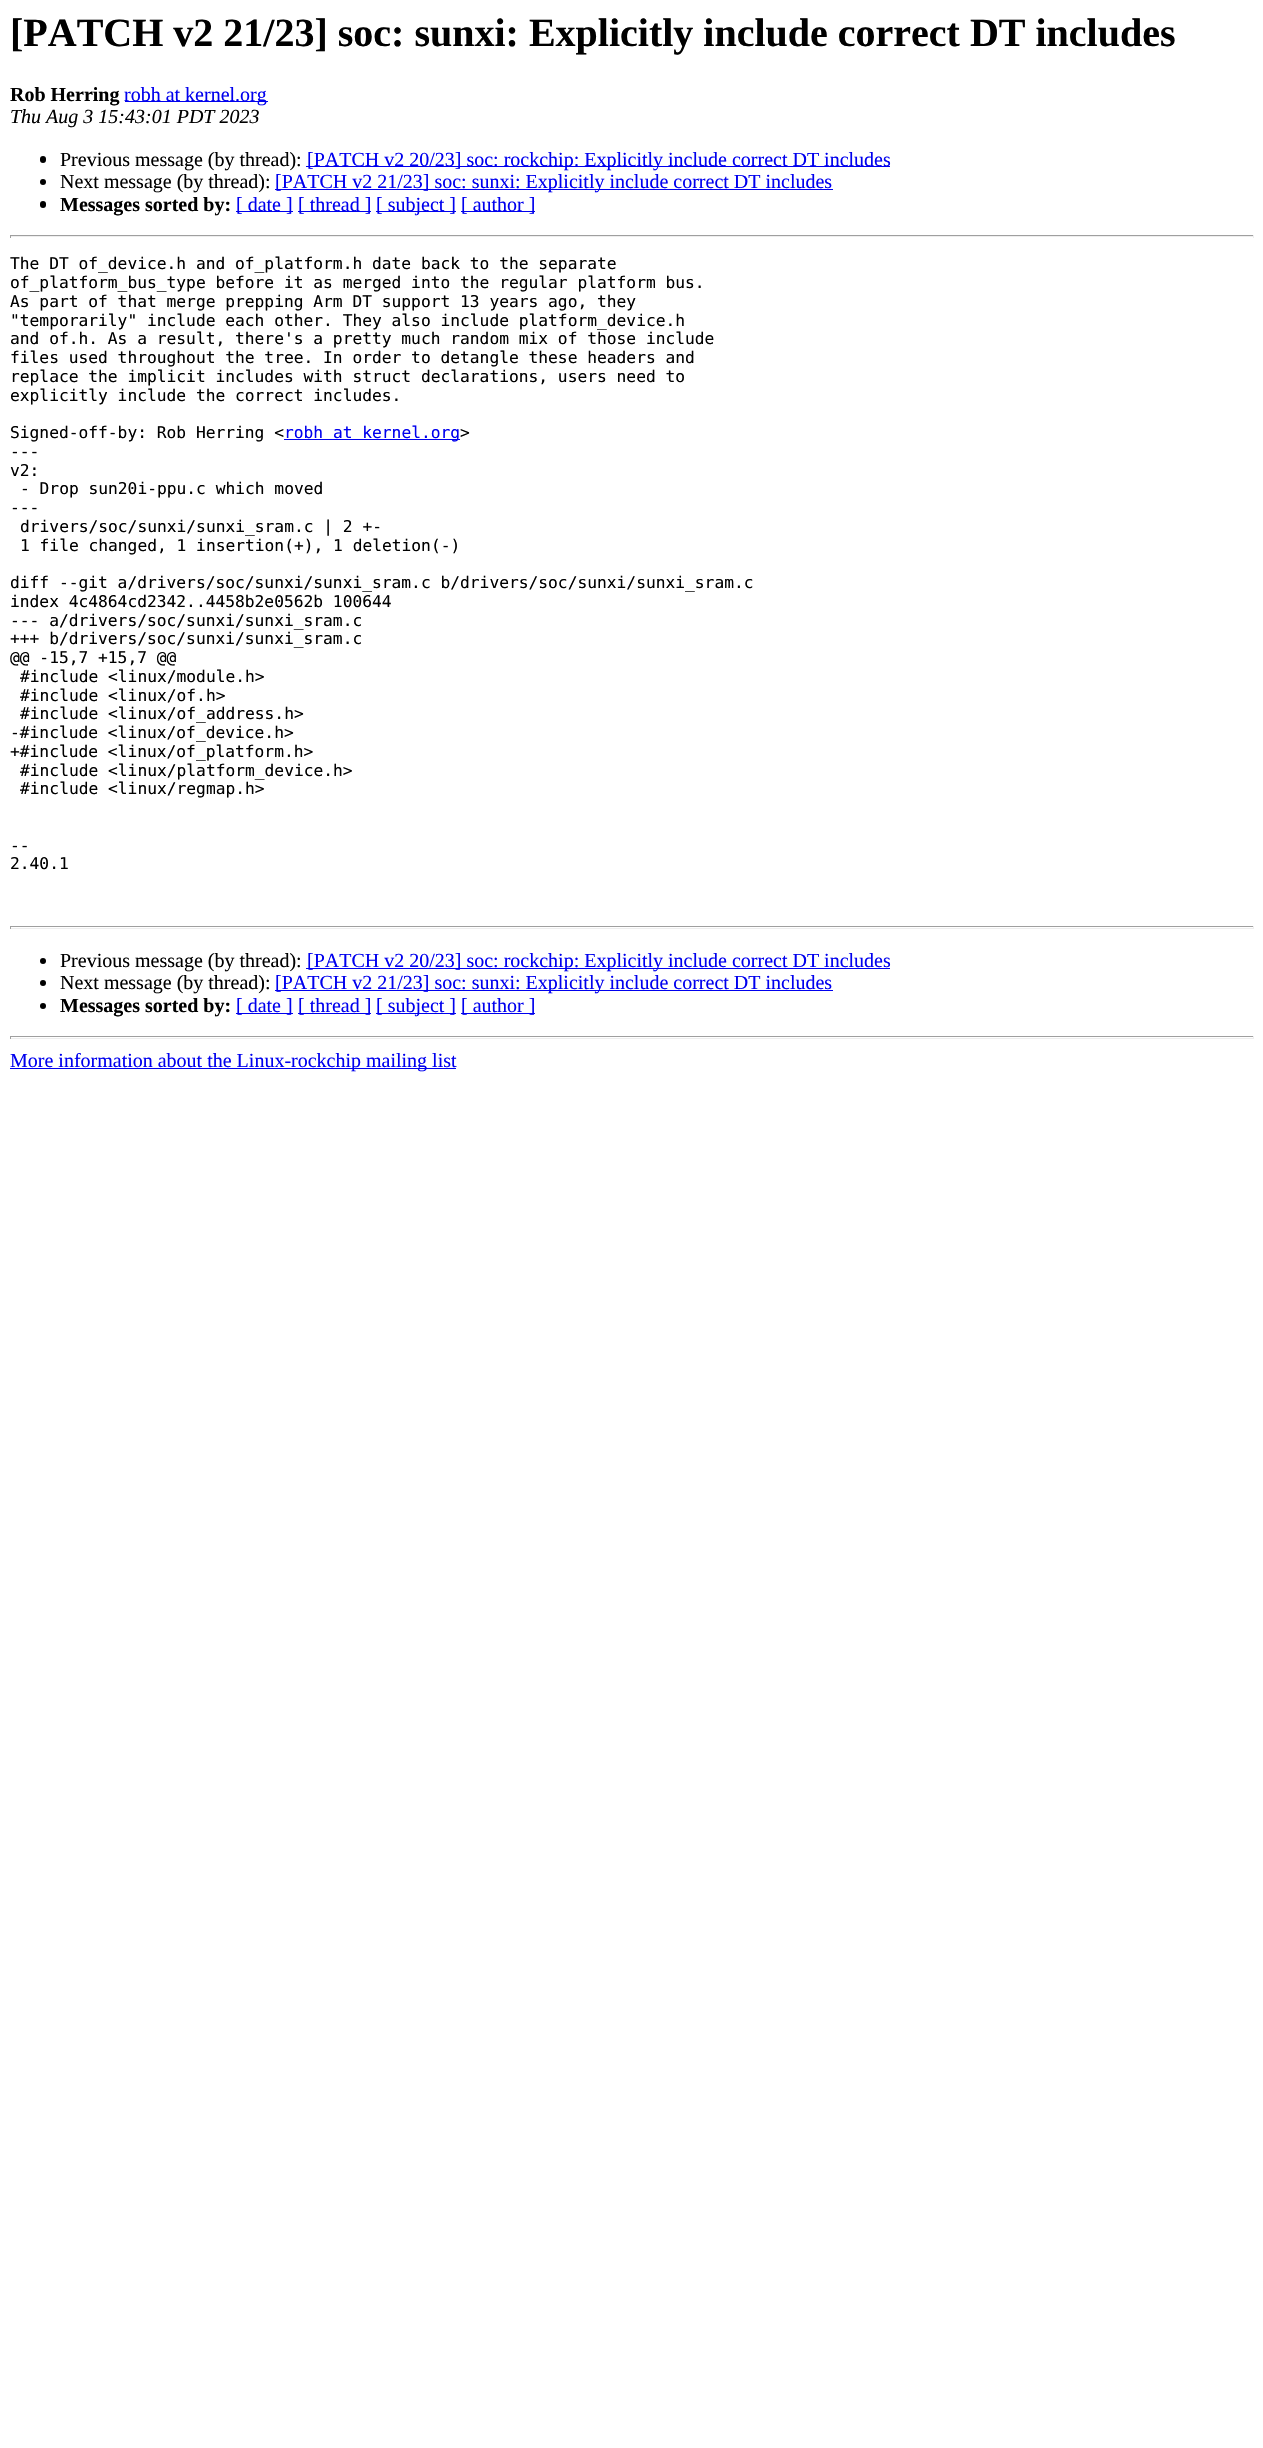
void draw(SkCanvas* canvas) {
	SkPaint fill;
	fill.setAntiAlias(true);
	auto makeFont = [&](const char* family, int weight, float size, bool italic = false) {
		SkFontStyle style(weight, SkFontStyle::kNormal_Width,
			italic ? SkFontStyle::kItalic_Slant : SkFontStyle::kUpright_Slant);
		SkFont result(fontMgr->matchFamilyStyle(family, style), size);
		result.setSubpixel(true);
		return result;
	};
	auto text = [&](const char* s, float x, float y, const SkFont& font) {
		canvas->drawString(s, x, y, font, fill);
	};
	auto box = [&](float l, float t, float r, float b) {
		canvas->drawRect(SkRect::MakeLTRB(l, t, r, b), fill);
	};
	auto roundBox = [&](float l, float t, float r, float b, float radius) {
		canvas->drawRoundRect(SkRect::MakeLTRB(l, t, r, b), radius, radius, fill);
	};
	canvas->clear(0xFFFFFFFF);
	fill.setColor(0xFF0000EE);
	box(125, 101, 268, 102);
	fill.setColor(0xFF000000);
	roundBox(40, 156, 46, 163, 3);
	fill.setColor(0xFF0000EE);
	box(306, 166, 890, 167);
	fill.setColor(0xFF000000);
	canvas->drawCircle(43, 182, 3, fill);
	fill.setColor(0xFF0000EE);
	box(275, 189, 833, 190);
	fill.setColor(0xFF000000);
	roundBox(40, 201, 46, 208, 3);
	fill.setColor(0xFF0000EE);
	box(236, 211, 293, 212);
	box(298, 211, 371, 212);
	box(376, 211, 456, 212);
	box(461, 211, 535, 212);
	fill.setColor(0xFF9F9F9F);
	box(10, 235, 1254, 236);
	fill.setColor(0xFFEEEEEE);
	box(1253, 235, 1254, 238);
	box(10, 236, 1254, 237);
	fill.setColor(0xFF9F9F9F);
	box(10, 235, 11, 238);
	fill.setColor(0xFF0000EE);
	box(284, 439, 460, 440);
	fill.setColor(0xFF9F9F9F);
	box(10, 926, 1254, 927);
	fill.setColor(0xFFEEEEEE);
	box(1253, 926, 1254, 929);
	box(10, 928, 1254, 929);
	fill.setColor(0xFF9F9F9F);
	box(10, 926, 11, 929);
	fill.setColor(0xFF000000);
	canvas->drawCircle(43, 961, 3, fill);
	fill.setColor(0xFF0000EE);
	box(306, 968, 890, 969);
	fill.setColor(0xFF000000);
	canvas->drawCircle(43, 983, 3, fill);
	fill.setColor(0xFF0000EE);
	box(275, 990, 833, 991);
	fill.setColor(0xFF000000);
	canvas->drawCircle(43, 1006, 3, fill);
	fill.setColor(0xFF0000EE);
	box(236, 1013, 293, 1014);
	box(298, 1013, 371, 1014);
	box(376, 1013, 456, 1014);
	box(461, 1013, 535, 1014);
	fill.setColor(0xFF9F9F9F);
	box(10, 1036, 1254, 1037);
	fill.setColor(0xFFEEEEEE);
	box(1253, 1036, 1254, 1039);
	box(10, 1038, 1254, 1039);
	fill.setColor(0xFF9F9F9F);
	box(10, 1036, 11, 1039);
	fill.setColor(0xFF0000EE);
	box(10, 1068, 456, 1069);
	auto font1 = makeFont("Liberation Serif", 700, 40);
	fill.setColor(0xFF000000);
	text("[PATCH v2 21/23] soc: sunxi: Explicitly include correct DT includes", 10, 46, font1);
	auto font2 = makeFont("Liberation Serif", 700, 20);
	text("Rob Herring", 10, 101, font2);
	auto font3 = makeFont("Liberation Serif", 400, 20);
	fill.setColor(0xFF0000EE);
	text("robh at kernel.org", 124, 101, font3);
	auto font4 = makeFont("Liberation Serif", 400, 20, true);
	fill.setColor(0xFF000000);
	text("Thu Aug 3 15:43:01 PDT 2023", 10, 123, font4);
	text("Previous message (by thread):", 60, 166, font3);
	fill.setColor(0xFF0000EE);
	text("[PATCH v2 20/23] soc: rockchip: Explicitly include correct DT includes", 307, 166, font3);
	fill.setColor(0xFF000000);
	text("Next message (by thread):", 60, 188, font3);
	fill.setColor(0xFF0000EE);
	text("[PATCH v2 21/23] soc: sunxi: Explicitly include correct DT includes", 275, 188, font3);
	fill.setColor(0xFF000000);
	text("Messages sorted by:", 60, 211, font2);
	fill.setColor(0xFF0000EE);
	text("[ date ]", 236, 211, font3);
	text("[ thread ]", 298, 211, font3);
	text("[ subject ]", 376, 211, font3);
	text("[ author ]", 461, 211, font3);
	auto font5 = makeFont("DejaVu Sans Mono", 400, 16.25f);
	fill.setColor(0xFF000000);
	text("The DT of_device.h and of_platform.h date back to the separate", 10, 269, font5);
	text("of_platform_bus_type before it as merged into the regular platform bus.", 10, 288, font5);
	text("As part of that merge prepping Arm DT support 13 years ago, they", 10, 307, font5);
	text("\"temporarily\" include each other. They also include platform_device.h", 10, 326, font5);
	text("and of.h. As a result, there's a pretty much random mix of those include", 10, 344, font5);
	text("files used throughout the tree. In order to detangle these headers and", 10, 363, font5);
	text("replace the implicit includes with struct declarations, users need to", 10, 382, font5);
	text("explicitly include the correct includes.", 10, 401, font5);
	text("Signed-off-by: Rob Herring <", 10, 438, font5);
	fill.setColor(0xFF0000EE);
	text("robh at kernel.org", 284, 438, font5);
	fill.setColor(0xFF000000);
	text(">", 460, 438, font5);
	text("---", 10, 457, font5);
	text("v2:", 10, 476, font5);
	text("- Drop sun20i-ppu.c which moved", 20, 494, font5);
	text("---", 10, 513, font5);
	text("drivers/soc/sunxi/sunxi_sram.c | 2 +-", 20, 532, font5);
	text("1 file changed, 1 insertion(+), 1 deletion(-)", 20, 551, font5);
	text("diff --git a/drivers/soc/sunxi/sunxi_sram.c b/drivers/soc/sunxi/sunxi_sram.c", 10, 588, font5);
	text("index 4c4864cd2342..4458b2e0562b 100644", 10, 607, font5);
	text("--- a/drivers/soc/sunxi/sunxi_sram.c", 10, 626, font5);
	text("+++ b/drivers/soc/sunxi/sunxi_sram.c", 10, 644, font5);
	text("@@ -15,7 +15,7 @@", 10, 663, font5);
	text("#include <linux/module.h>", 20, 682, font5);
	text("#include <linux/of.h>", 20, 701, font5);
	text("#include <linux/of_address.h>", 20, 719, font5);
	text("-#include <linux/of_device.h>", 10, 738, font5);
	text("+#include <linux/of_platform.h>", 10, 757, font5);
	text("#include <linux/platform_device.h>", 20, 776, font5);
	text("#include <linux/regmap.h>", 20, 794, font5);
	text("--", 10, 851, font5);
	text("2.40.1", 10, 869, font5);
	text("Previous message (by thread):", 60, 967, font3);
	fill.setColor(0xFF0000EE);
	text("[PATCH v2 20/23] soc: rockchip: Explicitly include correct DT includes", 307, 967, font3);
	fill.setColor(0xFF000000);
	text("Next message (by thread):", 60, 989, font3);
	fill.setColor(0xFF0000EE);
	text("[PATCH v2 21/23] soc: sunxi: Explicitly include correct DT includes", 275, 989, font3);
	fill.setColor(0xFF000000);
	text("Messages sorted by:", 60, 1012, font2);
	fill.setColor(0xFF0000EE);
	text("[ date ]", 236, 1012, font3);
	text("[ thread ]", 298, 1012, font3);
	text("[ subject ]", 376, 1012, font3);
	text("[ author ]", 461, 1012, font3);
	text("More information about the Linux-rockchip mailing list", 10, 1067, font3);
}
